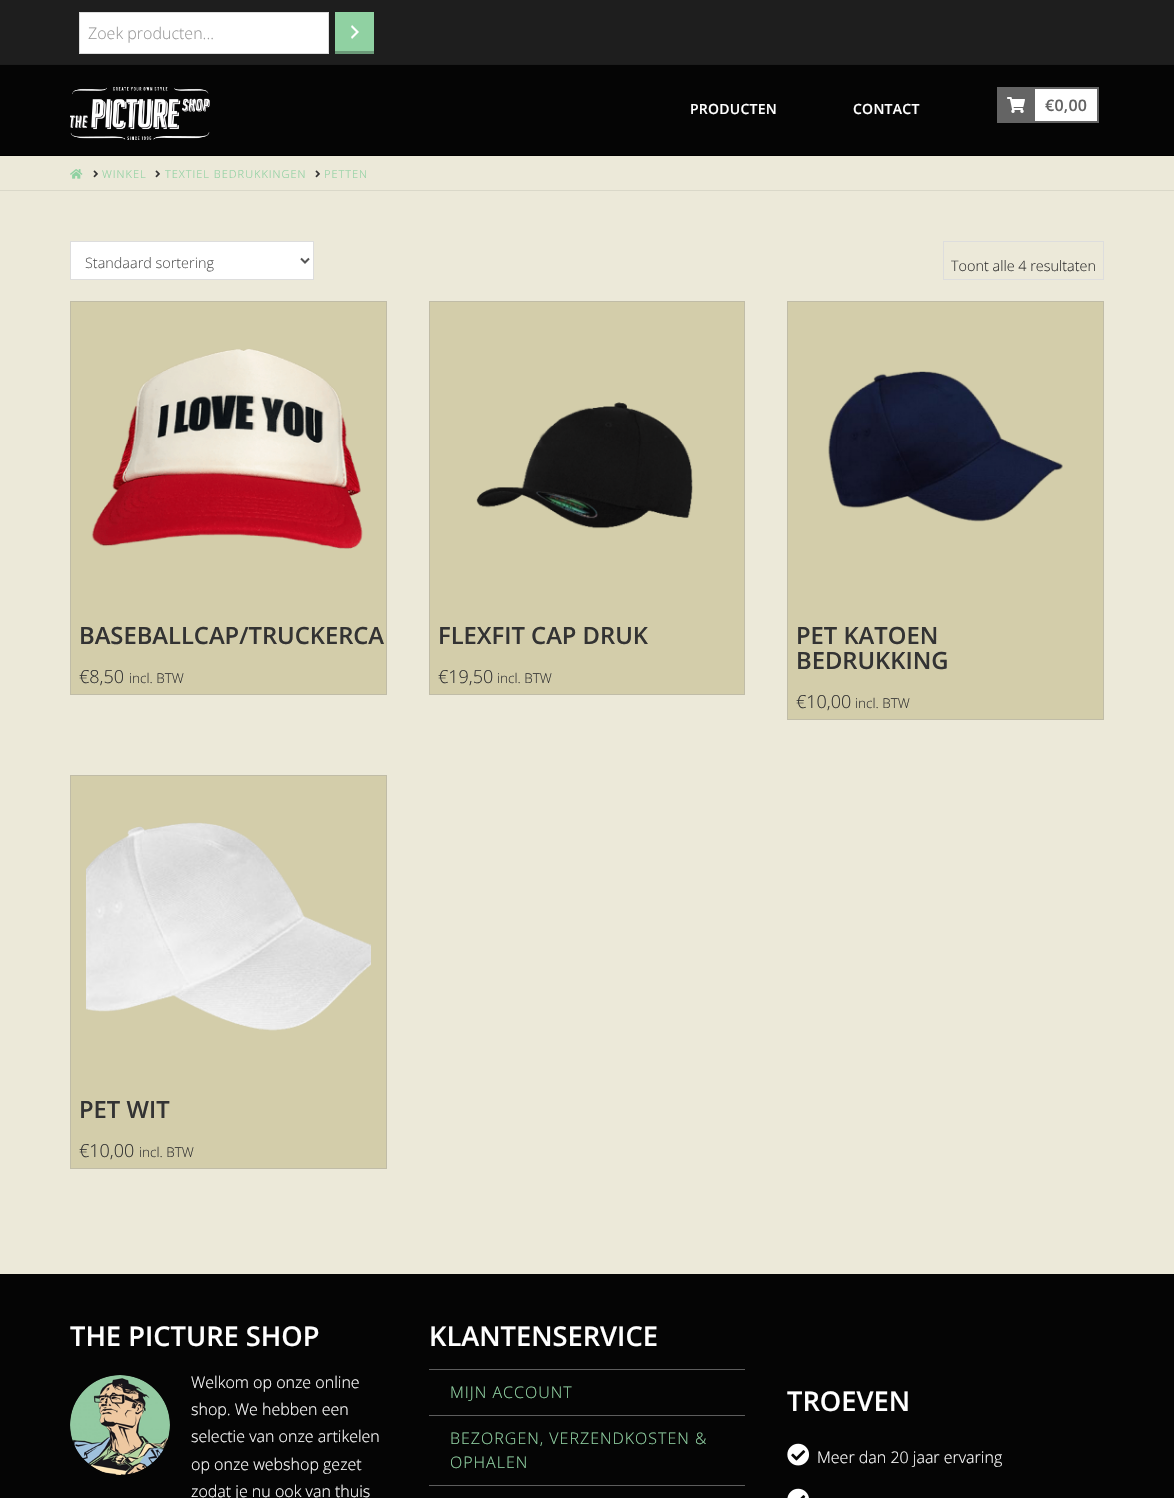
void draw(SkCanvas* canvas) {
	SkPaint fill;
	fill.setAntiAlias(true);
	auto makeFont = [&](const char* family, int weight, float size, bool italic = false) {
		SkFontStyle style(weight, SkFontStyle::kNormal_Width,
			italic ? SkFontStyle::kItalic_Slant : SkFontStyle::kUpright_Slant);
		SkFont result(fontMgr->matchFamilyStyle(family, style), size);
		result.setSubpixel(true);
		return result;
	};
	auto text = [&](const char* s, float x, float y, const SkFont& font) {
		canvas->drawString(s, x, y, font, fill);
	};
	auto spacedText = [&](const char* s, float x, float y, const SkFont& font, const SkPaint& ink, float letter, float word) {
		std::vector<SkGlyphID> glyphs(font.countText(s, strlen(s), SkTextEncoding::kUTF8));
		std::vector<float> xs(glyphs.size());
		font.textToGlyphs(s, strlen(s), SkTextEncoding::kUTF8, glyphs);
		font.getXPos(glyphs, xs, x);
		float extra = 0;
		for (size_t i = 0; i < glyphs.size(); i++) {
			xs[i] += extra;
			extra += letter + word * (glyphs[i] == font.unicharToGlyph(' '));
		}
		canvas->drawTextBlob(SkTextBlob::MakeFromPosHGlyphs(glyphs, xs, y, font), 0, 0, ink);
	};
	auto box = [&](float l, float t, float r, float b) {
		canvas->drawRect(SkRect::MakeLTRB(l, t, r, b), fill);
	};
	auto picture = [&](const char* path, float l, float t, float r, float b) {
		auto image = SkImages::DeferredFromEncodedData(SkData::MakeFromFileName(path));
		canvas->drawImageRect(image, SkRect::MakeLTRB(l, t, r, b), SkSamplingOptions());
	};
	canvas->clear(0xFFECE9D9);
	fill.setColor(0xFF1E1E1E);
	box(0, 0, 1174, 64);
	fill.setColor(0xFF1C1C1C);
	box(0, 64, 1174, 65);
	fill.setColor(0xFFFFFFFF);
	canvas->drawRect(SkRect::MakeLTRB(79.5f, 12.5f, 328.5f, 53.5f), fill);
	fill.setStyle(SkPaint::kStroke_Style);
	fill.setStrokeWidth(1);
	fill.setColor(0xFFDDDDDD);
	canvas->drawRect(SkRect::MakeLTRB(79.5f, 12.5f, 328.5f, 53.5f), fill);
	fill.setStyle(SkPaint::kFill_Style);
	fill.setColor(0xFF90D1A2);
	box(335, 12, 374, 51);
	fill.setColor(0xFF6B9978);
	box(335, 51, 374, 54);
	picture("image0.png", 351, 25, 359, 39);
	fill.setColor(0xFF050505);
	box(0, 65, 1174, 155);
	fill.setColor(0xFF000000);
	box(0, 155, 1174, 156);
	picture("image1.png", 70, 87, 210, 140);
	fill.setColor(0xFFFFFFFF);
	box(1035, 89, 1097, 121);
	fill.setColor(0xFF646464);
	box(997, 87, 1099, 89);
	box(1097, 87, 1099, 123);
	box(997, 121, 1099, 123);
	box(997, 89, 1035, 121);
	picture("image2.png", 1007, 97, 1025, 113);
	fill.setColor(0xFFDAD8C9);
	box(0, 190, 1174, 191);
	picture("image3.png", 70, 169, 83, 179);
	picture("image4.png", 93, 170, 98, 178);
	picture("image4.png", 155, 170, 160, 178);
	picture("image4.png", 315, 170, 320, 178);
	fill.setColor(0xFFFFFFFF);
	canvas->drawRect(SkRect::MakeLTRB(70.5f, 241.5f, 313.5f, 279.5f), fill);
	fill.setStyle(SkPaint::kStroke_Style);
	fill.setColor(0xFFDDDDDD);
	canvas->drawRect(SkRect::MakeLTRB(70.5f, 241.5f, 313.5f, 279.5f), fill);
	fill.setStrokeWidth(2);
	fill.setColor(0xFF555555);
	canvas->drawPath(SkPathBuilder().moveTo(301, 258.5f).lineTo(305, 262.5f).lineTo(309, 258.5f).detach(), fill);
	fill.setStrokeWidth(1);
	fill.setColor(0xFFDDDDDD);
	canvas->drawRect(SkRect::MakeLTRB(943.5f, 241.5f, 1103.5f, 279.5f), fill);
	fill.setStyle(SkPaint::kFill_Style);
	fill.setColor(0xFFD3CDAA);
	canvas->drawRect(SkRect::MakeLTRB(70.5f, 301.5f, 386.5f, 694.5f), fill);
	fill.setStyle(SkPaint::kStroke_Style);
	fill.setColor(0xFFC0BCA7);
	canvas->drawRect(SkRect::MakeLTRB(70.5f, 301.5f, 386.5f, 694.5f), fill);
	picture("image5.png", 91, 349, 363, 549);
	fill.setStyle(SkPaint::kFill_Style);
	fill.setColor(0xFFD3CDAA);
	canvas->drawRect(SkRect::MakeLTRB(429.5f, 301.5f, 744.5f, 694.5f), fill);
	fill.setStyle(SkPaint::kStroke_Style);
	fill.setColor(0xFFC0BCA7);
	canvas->drawRect(SkRect::MakeLTRB(429.5f, 301.5f, 744.5f, 694.5f), fill);
	picture("image6.png", 476, 402, 693, 529);
	fill.setStyle(SkPaint::kFill_Style);
	fill.setColor(0xFFD3CDAA);
	canvas->drawRect(SkRect::MakeLTRB(787.5f, 301.5f, 1103.5f, 719.5f), fill);
	fill.setStyle(SkPaint::kStroke_Style);
	fill.setColor(0xFFC0BCA7);
	canvas->drawRect(SkRect::MakeLTRB(787.5f, 301.5f, 1103.5f, 719.5f), fill);
	picture("image7.png", 828, 371, 1063, 522);
	fill.setStyle(SkPaint::kFill_Style);
	fill.setColor(0xFFD3CDAA);
	canvas->drawRect(SkRect::MakeLTRB(70.5f, 775.5f, 386.5f, 1168.5f), fill);
	fill.setStyle(SkPaint::kStroke_Style);
	fill.setColor(0xFFC0BCA7);
	canvas->drawRect(SkRect::MakeLTRB(70.5f, 775.5f, 386.5f, 1168.5f), fill);
	picture("image8.png", 86, 822, 371, 1031);
	fill.setStyle(SkPaint::kFill_Style);
	fill.setColor(0xFF050505);
	box(0, 1274, 1174, 1498);
	picture("image9.png", 70, 1375, 170, 1475);
	fill.setColor(0xFF5D5D5D);
	box(429, 1369, 745, 1370);
	box(429, 1415, 745, 1416);
	box(429, 1485, 745, 1486);
	picture("image10.png", 787, 1443, 810, 1466);
	picture("image11.png", 787, 1488, 809, 1498);
	auto font1 = makeFont("Open Sans", 300, 16);
	fill.setColor(0xFF999999);
	text("Zoek producten...", 88, 39, font1);
	auto font2 = makeFont("Open Sans", 600, 14);
	fill.setColor(0xFFFFFFFF);
	spacedText("PRODUCTEN", 690, 114, font2, fill, 0.25f, 0);
	spacedText("CONTACT", 853, 114, font2, fill, 0.25f, 0);
	auto font3 = makeFont("Open Sans", 600, 16);
	fill.setColor(0xFF646464);
	spacedText("€0,00", 1045, 111, font3, fill, 0.25f, 0);
	auto font4 = makeFont("Open Sans", 300, 11);
	fill.setColor(0xFF90D1A2);
	spacedText("WINKEL", 102, 178, font4, fill, 1, 0);
	spacedText("TEXTIEL BEDRUKKINGEN", 165, 178, font4, fill, 1, 0);
	spacedText("PETTEN", 324, 178, font4, fill, 1, 0);
	auto font5 = makeFont("Open Sans", 300, 14.4f);
	fill.setColor(0xFF555555);
	text("Standaard sortering", 85, 268, font5);
	fill.setColor(0xFF333333);
	text("Toont alle 4 resultaten", 951, 271, font5);
	auto font6 = makeFont("Open Sans", 600, 23.75f);
	text("BASEBALLCAP/TRUCKERCA", 79, 644, font6);
	auto font7 = makeFont("Open Sans", 300, 18);
	text("€8,50", 79, 683, font7);
	auto font8 = makeFont("Open Sans", 300, 13.5f);
	text("incl. BTW", 129, 683, font8);
	text("FLEXFIT CAP DRUK", 438, 644, font6);
	text("€19,50", 438, 683, font7);
	text("incl. BTW", 497, 683, font8);
	text("PET KATOEN", 796, 644, font6);
	text("BEDRUKKING", 796, 669, font6);
	text("€10,00", 796, 708, font7);
	text("incl. BTW", 855, 708, font8);
	text("PET WIT", 79, 1118, font6);
	text("€10,00", 79, 1157, font7);
	text("incl. BTW", 139, 1157, font8);
	auto font9 = makeFont("Open Sans", 600, 27.25f);
	fill.setColor(0xFFFFFFFF);
	text("THE PICTURE SHOP", 70, 1346, font9);
	text("Welkom op onze online", 191, 1388, font1);
	text("shop. We hebben een", 191, 1415, font1);
	text("selectie van onze artikelen", 191, 1442, font1);
	text("op onze webshop gezet", 191, 1470, font1);
	text("zodat je nu ook van thuis", 191, 1497, font1);
	text("KLANTENSERVICE", 429, 1346, font9);
	fill.setColor(0xFF90D1A2);
	spacedText("MIJN ACCOUNT", 450, 1398, font1, fill, 1, 0);
	spacedText("BEZORGEN, VERZENDKOSTEN &", 450, 1444, font1, fill, 1, 0);
	spacedText("OPHALEN", 450, 1468, font1, fill, 1, 0);
	fill.setColor(0xFFFFFFFF);
	text("TROEVEN", 787, 1411, font9);
	text("Meer dan 20 jaar ervaring", 817, 1463, font1);
}
